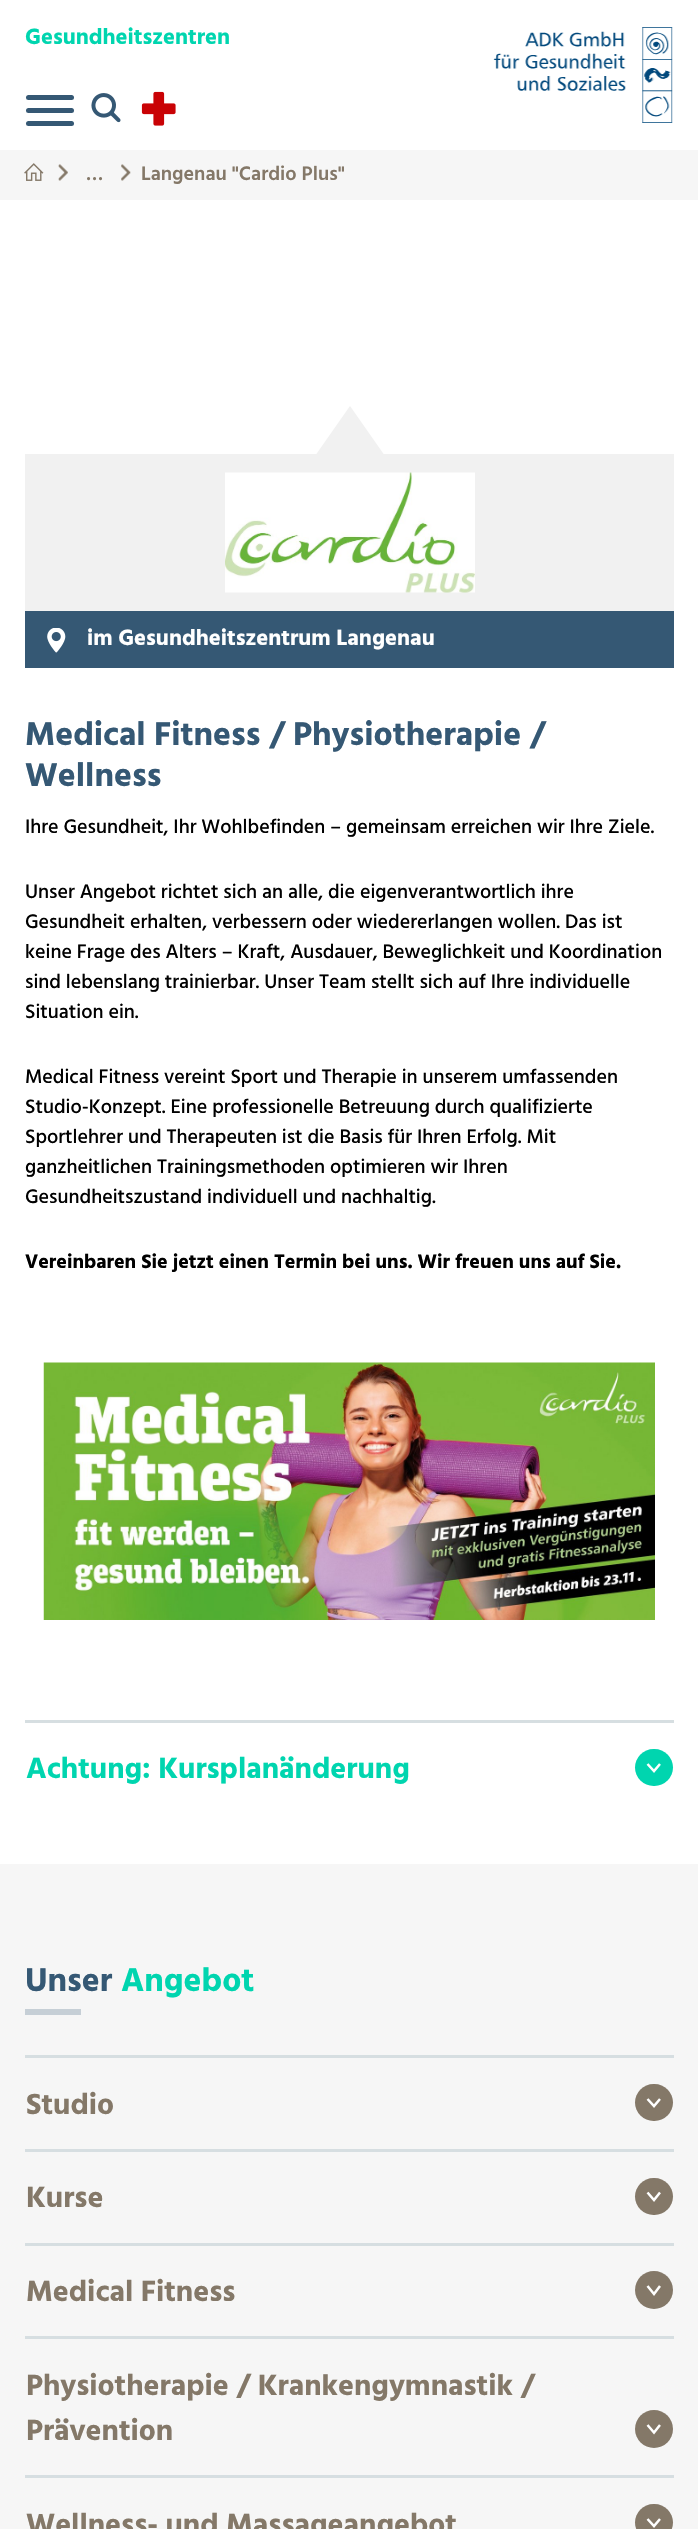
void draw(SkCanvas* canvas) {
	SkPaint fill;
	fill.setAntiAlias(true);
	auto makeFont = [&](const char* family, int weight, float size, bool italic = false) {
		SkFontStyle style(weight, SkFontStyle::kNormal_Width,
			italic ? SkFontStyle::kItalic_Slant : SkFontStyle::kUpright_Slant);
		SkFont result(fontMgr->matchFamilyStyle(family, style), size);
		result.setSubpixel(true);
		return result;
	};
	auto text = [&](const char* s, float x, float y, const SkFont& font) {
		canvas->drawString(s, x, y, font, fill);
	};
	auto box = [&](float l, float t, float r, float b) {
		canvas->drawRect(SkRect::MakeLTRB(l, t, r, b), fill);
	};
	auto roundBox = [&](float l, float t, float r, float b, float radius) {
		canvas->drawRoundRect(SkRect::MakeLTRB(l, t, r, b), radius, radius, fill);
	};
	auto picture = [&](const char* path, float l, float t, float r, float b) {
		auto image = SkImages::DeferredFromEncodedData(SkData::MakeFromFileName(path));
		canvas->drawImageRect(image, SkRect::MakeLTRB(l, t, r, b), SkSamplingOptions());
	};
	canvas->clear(0xFFFFFFFF);
	picture("image0.png", 91, 93, 121, 123);
	picture("image1.png", 141, 91, 176, 126);
	picture("image2.png", 493, 27, 673, 123);
	fill.setColor(0xFF355874);
	roundBox(26, 95, 74, 100, 2.5f);
	roundBox(26, 108, 74, 113, 2.5f);
	roundBox(26, 121, 74, 126, 2.5f);
	fill.setColor(0xFFF6F6F6);
	box(0, 150, 698, 200);
	picture("image3.png", 24, 163, 44, 181);
	picture("image4.png", 58, 164, 68, 181);
	picture("image5.png", 121, 164, 131, 181);
	fill.setColor(0xFFF1F1F1);
	box(25, 454, 674, 611);
	canvas->drawPath(SkPathBuilder().moveTo(385, 456).lineTo(315, 456).lineTo(350, 406).close().detach(), fill);
	picture("image6.png", 225, 472, 475, 593);
	fill.setColor(0xFF355874);
	box(25, 611, 674, 668);
	picture("image7.png", 47, 628, 66, 653);
	picture("image8.png", 43, 1362, 655, 1620);
	fill.setColor(0xFFD6DEE1);
	box(25, 1720, 674, 1723);
	fill.setColor(0xFF00D5AF);
	roundBox(635, 1749, 673, 1786, 18.5f);
	fill.setStyle(SkPaint::kStroke_Style);
	fill.setStrokeWidth(2.5f);
	fill.setColor(0xFFFFFFFF);
	canvas->drawPath(SkPathBuilder().moveTo(647.5f, 1764).lineTo(654, 1771).lineTo(660, 1764).detach(), fill);
	fill.setStyle(SkPaint::kFill_Style);
	fill.setColor(0xFFF6F6F6);
	box(0, 1864, 698, 2529);
	fill.setColor(0xFFC6CFD6);
	box(25, 2009, 81, 2015);
	fill.setColor(0xFFD6DEE1);
	box(25, 2055, 674, 2058);
	fill.setColor(0xFF847868);
	roundBox(635, 2084, 673, 2121, 18.5f);
	fill.setStyle(SkPaint::kStroke_Style);
	fill.setColor(0xFFFFFFFF);
	canvas->drawPath(SkPathBuilder().moveTo(647.5f, 2099).lineTo(654, 2106).lineTo(660, 2099).detach(), fill);
	fill.setStyle(SkPaint::kFill_Style);
	fill.setColor(0xFFD6DEE1);
	box(25, 2149, 674, 2152);
	fill.setColor(0xFF847868);
	roundBox(635, 2178, 673, 2215, 18.5f);
	fill.setStyle(SkPaint::kStroke_Style);
	fill.setColor(0xFFFFFFFF);
	canvas->drawPath(SkPathBuilder().moveTo(647.5f, 2192.5f).lineTo(654, 2200).lineTo(660, 2192.5f).detach(), fill);
	fill.setStyle(SkPaint::kFill_Style);
	fill.setColor(0xFFD6DEE1);
	box(25, 2243, 674, 2246);
	fill.setColor(0xFF847868);
	canvas->drawCircle(654, 2290, 19, fill);
	fill.setStyle(SkPaint::kStroke_Style);
	fill.setColor(0xFFFFFFFF);
	canvas->drawPath(SkPathBuilder().moveTo(647.5f, 2286).lineTo(654, 2294).lineTo(660, 2286).detach(), fill);
	fill.setStyle(SkPaint::kFill_Style);
	fill.setColor(0xFFD6DEE1);
	box(25, 2336, 674, 2339);
	fill.setColor(0xFF847868);
	canvas->drawCircle(654, 2429, 19, fill);
	fill.setStyle(SkPaint::kStroke_Style);
	fill.setColor(0xFFFFFFFF);
	canvas->drawPath(SkPathBuilder().moveTo(647.5f, 2425).lineTo(654, 2432.5f).lineTo(660, 2425).detach(), fill);
	fill.setStyle(SkPaint::kFill_Style);
	fill.setColor(0xFFD6DEE1);
	box(25, 2475, 674, 2478);
	fill.setColor(0xFF847868);
	roundBox(635, 2504, 673, 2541, 18.5f);
	fill.setStyle(SkPaint::kStroke_Style);
	fill.setColor(0xFFFFFFFF);
	canvas->drawPath(SkPathBuilder().moveTo(647.5f, 2519).lineTo(654, 2526).lineTo(660, 2519).detach(), fill);
	auto font1 = makeFont("Hind", 700, 22.5f);
	fill.setStyle(SkPaint::kFill_Style);
	fill.setColor(0xFF00D5AF);
	text("Gesundheitszentren", 25, 44, font1);
	auto font2 = makeFont("Hind", 600, 20);
	fill.setColor(0xFF847868);
	text("…", 86, 180, font2);
	text("Langenau \"Cardio Plus\"", 141, 180, font2);
	fill.setColor(0xFFFFFFFF);
	text("im Gesundheitszentrum Langenau", 87, 645, font1);
	auto font3 = makeFont("Hind", 700, 33.75f);
	fill.setColor(0xFF355874);
	text("Medical Fitness / Physiotherapie /", 25, 745, font3);
	text("Wellness", 25, 786, font3);
	auto font4 = makeFont("Hind", 500, 20);
	fill.setColor(0xFF000000);
	text("Ihre Gesundheit, Ihr Wohlbefinden – gemeinsam erreichen wir Ihre Ziele.", 25, 833, font4);
	text("Unser Angebot richtet sich an alle, die eigenverantwortlich ihre", 25, 898, font4);
	text("Gesundheit erhalten, verbessern oder wiedererlangen wollen. Das ist", 25, 928, font4);
	text("keine Frage des Alters – Kraft, Ausdauer, Beweglichkeit und Koordination", 25, 958, font4);
	text("sind lebenslang trainierbar. Unser Team stellt sich auf Ihre individuelle", 25, 988, font4);
	text("Situation ein.", 25, 1018, font4);
	text("Medical Fitness vereint Sport und Therapie in unserem umfassenden", 25, 1083, font4);
	text("Studio-Konzept. Eine professionelle Betreuung durch qualifizierte", 25, 1113, font4);
	text("Sportlehrer und Therapeuten ist die Basis für Ihren Erfolg. Mit", 25, 1143, font4);
	text("ganzheitlichen Trainingsmethoden optimieren wir Ihren", 25, 1173, font4);
	text("Gesundheitszustand individuell und nachhaltig.", 25, 1203, font4);
	auto font5 = makeFont("Hind", 700, 20);
	text("Vereinbaren Sie jetzt einen Termin bei uns. Wir freuen uns auf Sie.", 25, 1268, font5);
	auto font6 = makeFont("Hind", 700, 30);
	fill.setColor(0xFF00D5AF);
	text("Achtung: Kursplanänderung", 26, 1778, font6);
	fill.setColor(0xFF355874);
	text("Unser", 25, 1991, font3);
	fill.setColor(0xFF00D5AF);
	text("Angebot", 121, 1991, font3);
	fill.setColor(0xFF847868);
	text("Studio", 26, 2114, font6);
	text("Kurse", 26, 2207, font6);
	text("Medical Fitness", 26, 2301, font6);
	text("Physiotherapie / Krankengymnastik /", 26, 2395, font6);
	text("Prävention", 26, 2440, font6);
	text("Wellness- und Massageangebot", 26, 2534, font6);
}
